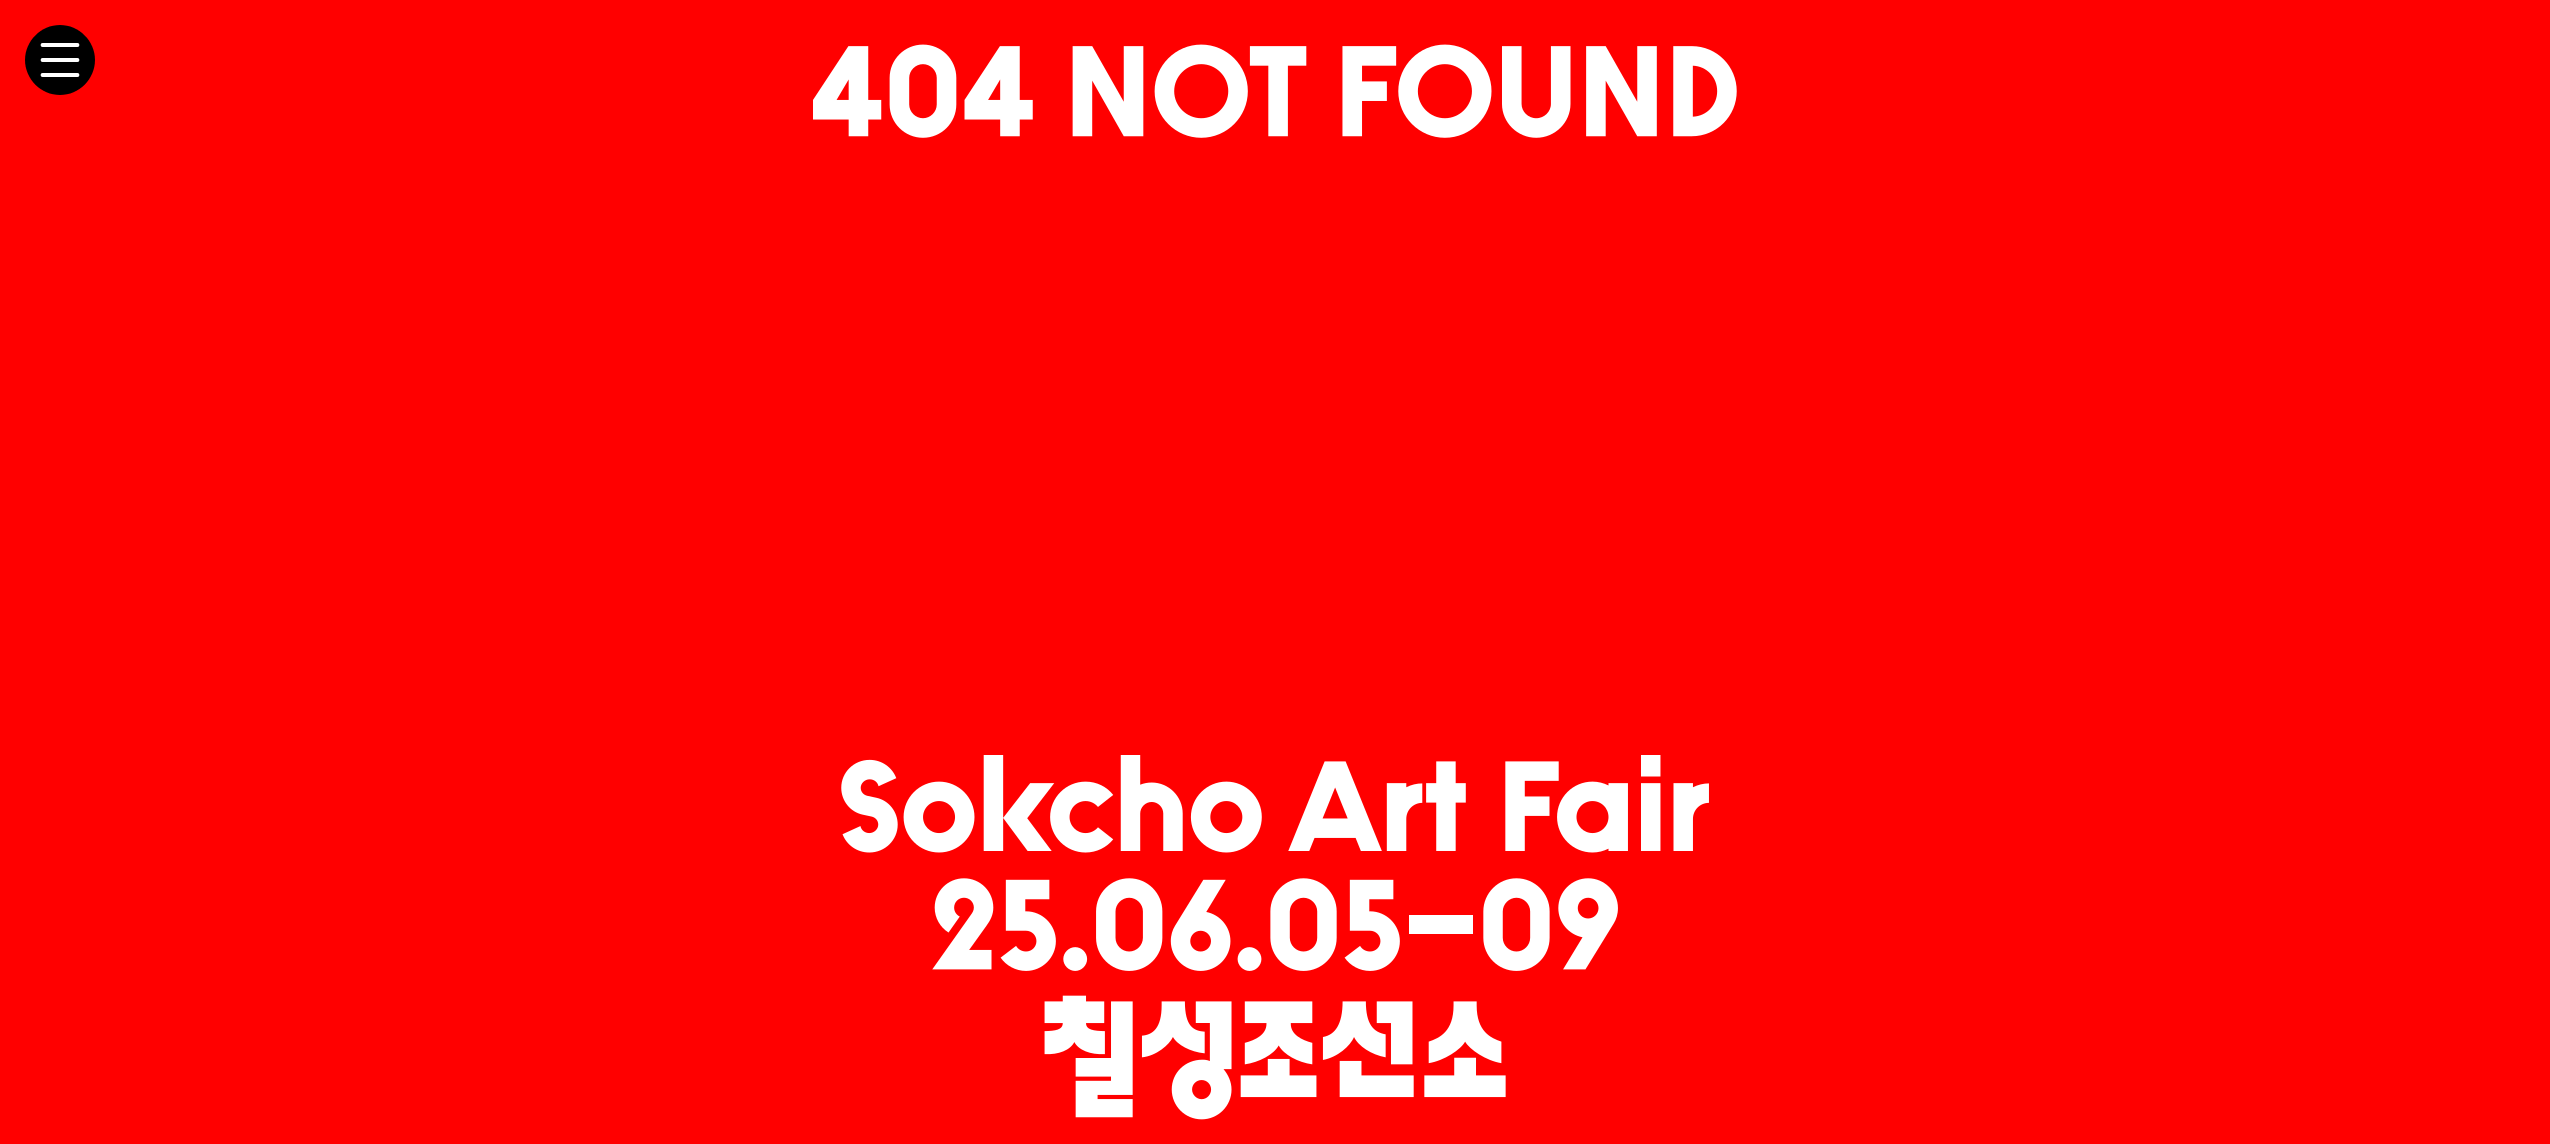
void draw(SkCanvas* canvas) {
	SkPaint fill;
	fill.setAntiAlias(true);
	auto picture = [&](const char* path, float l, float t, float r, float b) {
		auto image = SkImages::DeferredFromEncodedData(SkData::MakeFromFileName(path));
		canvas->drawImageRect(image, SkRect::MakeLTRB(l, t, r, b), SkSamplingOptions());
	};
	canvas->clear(0xFFFF0000);
	fill.setColor(0xFF000000);
	canvas->drawPath(SkPathBuilder().moveTo(60, 95).cubicTo(79, 95, 95, 79, 95, 60).cubicTo(95, 41, 79, 25, 60, 25).cubicTo(41, 25, 25, 41, 25, 60).cubicTo(25, 79, 41, 95, 60, 95).close().detach(), fill);
	fill.setStyle(SkPaint::kStroke_Style);
	fill.setStrokeWidth(3.8f);
	fill.setStrokeCap(SkPaint::kRound_Cap);
	fill.setColor(0xFFFFFFFF);
	canvas->drawPath(SkPathBuilder().moveTo(42.5f, 45).lineTo(77.5f, 45).moveTo(42.5f, 60).lineTo(77.5f, 60).moveTo(42.5f, 75).lineTo(77.5f, 75).detach(), fill);
	picture("image0.png", 813, 44, 1033, 138);
	picture("image1.png", 1072, 44, 1737, 138);
	picture("image2.png", 841, 755, 1709, 1120);
}
